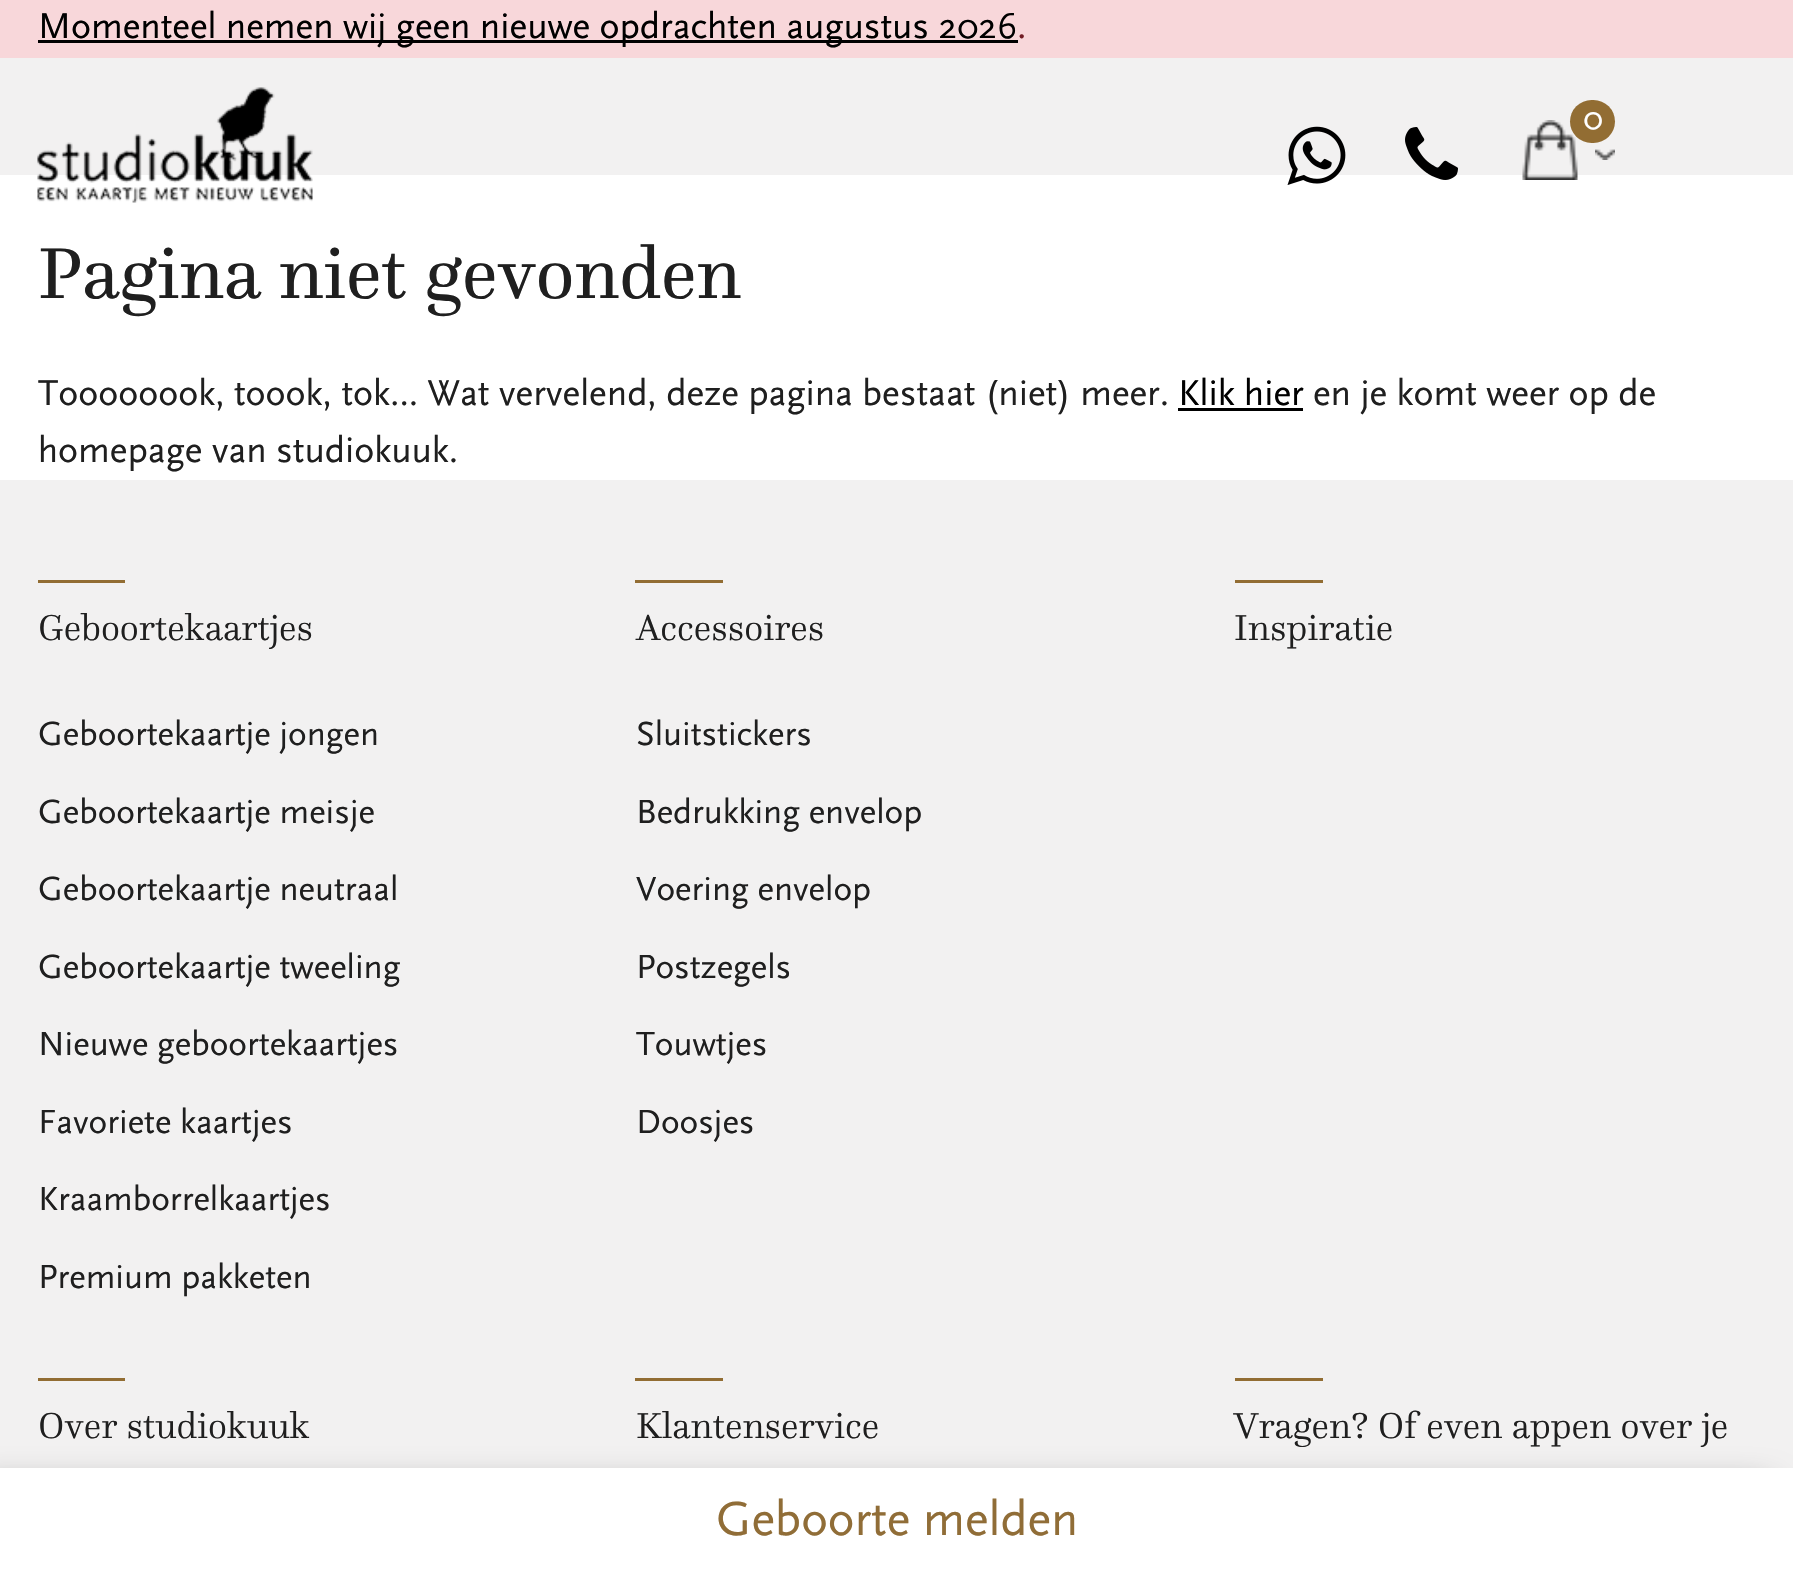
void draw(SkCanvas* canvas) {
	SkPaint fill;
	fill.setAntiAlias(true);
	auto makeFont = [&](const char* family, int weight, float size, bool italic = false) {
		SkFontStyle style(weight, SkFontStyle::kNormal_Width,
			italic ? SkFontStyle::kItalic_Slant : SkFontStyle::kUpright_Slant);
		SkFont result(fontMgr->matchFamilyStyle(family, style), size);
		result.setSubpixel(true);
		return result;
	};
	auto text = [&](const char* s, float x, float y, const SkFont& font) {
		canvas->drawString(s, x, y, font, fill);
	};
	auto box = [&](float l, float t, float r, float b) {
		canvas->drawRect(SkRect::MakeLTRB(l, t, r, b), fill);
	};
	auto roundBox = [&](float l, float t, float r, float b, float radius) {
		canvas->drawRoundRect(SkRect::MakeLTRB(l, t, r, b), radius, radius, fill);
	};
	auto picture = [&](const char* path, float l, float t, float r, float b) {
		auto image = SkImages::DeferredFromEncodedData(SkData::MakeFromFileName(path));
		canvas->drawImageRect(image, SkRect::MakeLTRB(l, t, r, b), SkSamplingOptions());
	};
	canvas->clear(0xFFFFFFFF);
	fill.setColor(0xFFF2F1F1);
	box(0, 58, 1793, 175);
	fill.setColor(0xFFF8D7DA);
	box(0, 0, 1793, 58);
	fill.setColor(0xFF000000);
	box(38, 40, 1018, 43);
	picture("image0.png", 37, 87, 313, 203);
	picture("image1.png", 1595, 149, 1615, 160);
	picture("image2.png", 1522, 120, 1578, 180);
	fill.setColor(0xFF926D33);
	roundBox(1570, 100, 1615, 143, 21.5f);
	picture("image3.png", 1287, 126, 1346, 185);
	picture("image4.png", 1405, 127, 1458, 180);
	fill.setColor(0xFF000000);
	box(1178, 408, 1303, 411);
	fill.setColor(0xFFF2F1F1);
	box(0, 480, 1793, 1468);
	fill.setColor(0xFF926D33);
	box(38, 580, 125, 583);
	box(635, 580, 723, 583);
	box(1235, 580, 1323, 583);
	box(38, 1378, 125, 1381);
	box(635, 1378, 723, 1381);
	box(1235, 1378, 1323, 1381);
	fill.setColor(0xFF808080);
	fill.setMaskFilter(SkMaskFilter::MakeBlur(kNormal_SkBlurStyle, 17.5f));
	canvas->drawRect(SkRect::MakeLTRB(-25, 1488, 1770, 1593), fill);
	fill.setMaskFilter(nullptr);
	fill.setColor(0xFFFFFFFF);
	box(0, 1468, 1793, 1572);
	auto font1 = makeFont("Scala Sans", 400, 37.5f);
	fill.setColor(0xFF000000);
	text("Momenteel nemen wij geen nieuwe opdrachten augustus 2026", 38, 38, font1);
	fill.setColor(0xFF721C24);
	text(".", 1017, 38, font1);
	auto font2 = makeFont("Scala Sans", 400, 35);
	fill.setColor(0xFFFFFFFF);
	text("0", 1583, 129, font2);
	auto font3 = makeFont("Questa", 400, 75);
	fill.setColor(0xFF1F1F1F);
	text("Pagina niet gevonden", 38, 298, font3);
	text("Toooooook, toook, tok... Wat vervelend, deze pagina bestaat (niet) meer.", 38, 405, font1);
	fill.setColor(0xFF000000);
	text("Klik hier", 1178, 405, font1);
	fill.setColor(0xFF1F1F1F);
	text("en je komt weer op de", 1313, 405, font1);
	text("homepage van studiokuuk.", 38, 462, font1);
	auto font4 = makeFont("Questa", 300, 37.5f);
	text("Geboortekaartjes", 38, 640, font4);
	text("Geboortekaartje jongen", 38, 745, font2);
	text("Geboortekaartje meisje", 38, 823, font2);
	text("Geboortekaartje neutraal", 38, 900, font2);
	text("Geboortekaartje tweeling", 38, 978, font2);
	text("Nieuwe geboortekaartjes", 38, 1055, font2);
	text("Favoriete kaartjes", 38, 1133, font2);
	text("Kraamborrelkaartjes", 38, 1210, font2);
	text("Premium pakketen", 38, 1288, font2);
	text("Accessoires", 636, 640, font4);
	text("Sluitstickers", 636, 745, font2);
	text("Bedrukking envelop", 636, 823, font2);
	text("Voering envelop", 636, 900, font2);
	text("Postzegels", 636, 978, font2);
	text("Touwtjes", 636, 1055, font2);
	text("Doosjes", 636, 1133, font2);
	text("Inspiratie", 1234, 640, font4);
	text("Over studiokuuk", 38, 1438, font4);
	text("Klantenservice", 636, 1438, font4);
	text("Vragen? Of even appen over je", 1234, 1438, font4);
	auto font5 = makeFont("Scala Sans", 400, 50);
	fill.setColor(0xFF906D37);
	text("Geboorte melden", 716, 1535, font5);
}
